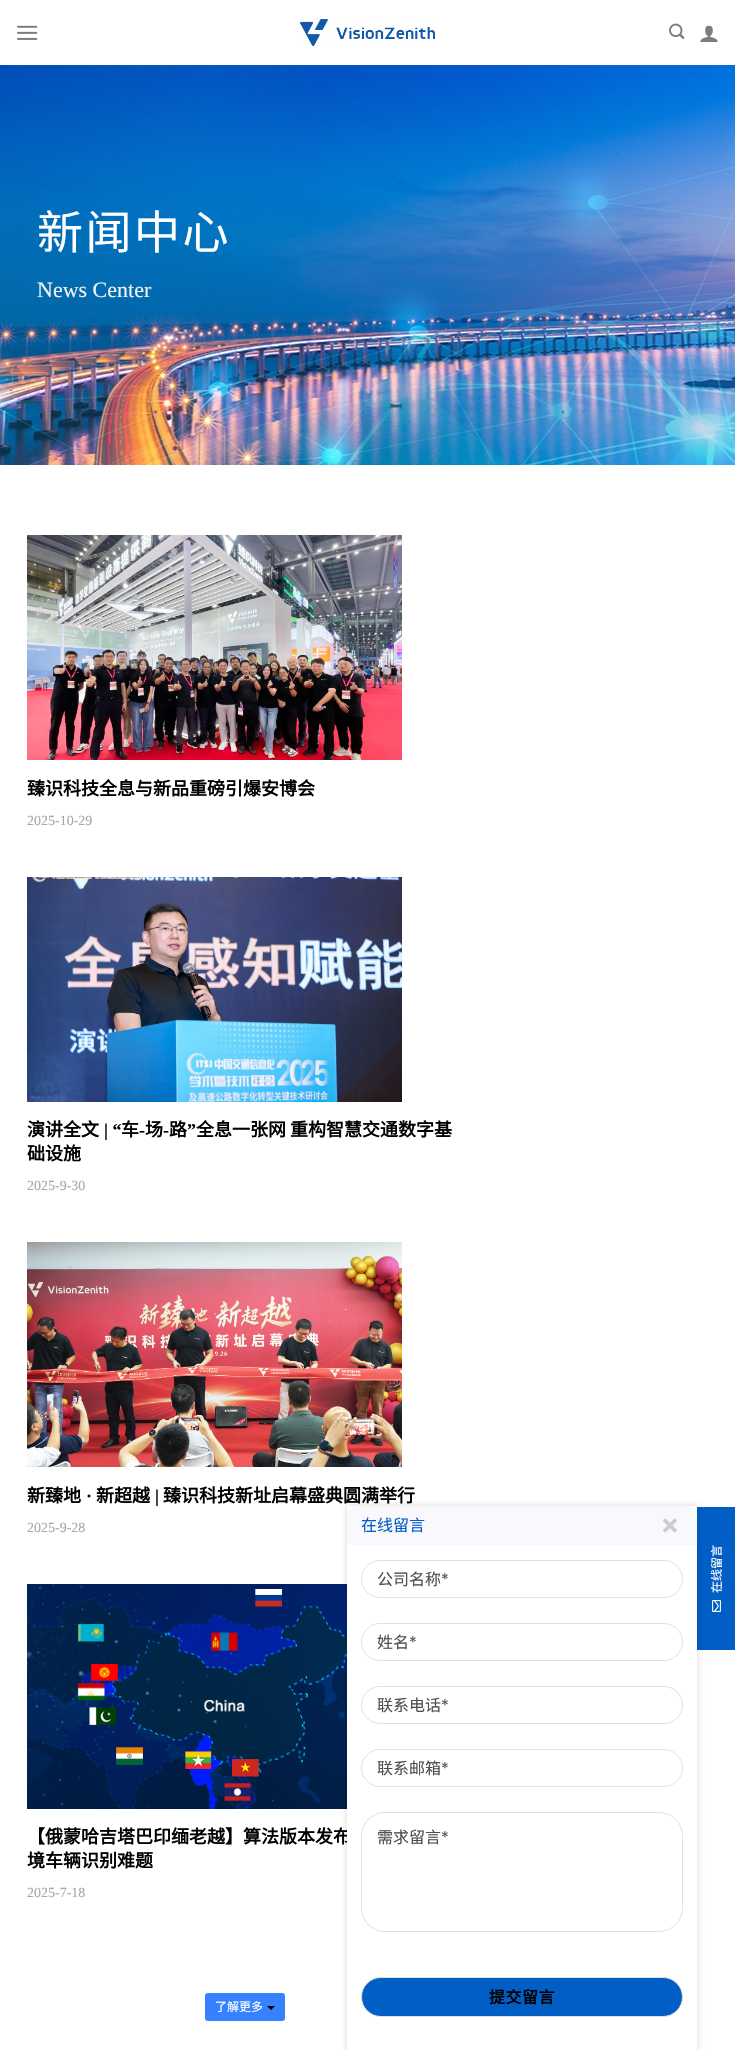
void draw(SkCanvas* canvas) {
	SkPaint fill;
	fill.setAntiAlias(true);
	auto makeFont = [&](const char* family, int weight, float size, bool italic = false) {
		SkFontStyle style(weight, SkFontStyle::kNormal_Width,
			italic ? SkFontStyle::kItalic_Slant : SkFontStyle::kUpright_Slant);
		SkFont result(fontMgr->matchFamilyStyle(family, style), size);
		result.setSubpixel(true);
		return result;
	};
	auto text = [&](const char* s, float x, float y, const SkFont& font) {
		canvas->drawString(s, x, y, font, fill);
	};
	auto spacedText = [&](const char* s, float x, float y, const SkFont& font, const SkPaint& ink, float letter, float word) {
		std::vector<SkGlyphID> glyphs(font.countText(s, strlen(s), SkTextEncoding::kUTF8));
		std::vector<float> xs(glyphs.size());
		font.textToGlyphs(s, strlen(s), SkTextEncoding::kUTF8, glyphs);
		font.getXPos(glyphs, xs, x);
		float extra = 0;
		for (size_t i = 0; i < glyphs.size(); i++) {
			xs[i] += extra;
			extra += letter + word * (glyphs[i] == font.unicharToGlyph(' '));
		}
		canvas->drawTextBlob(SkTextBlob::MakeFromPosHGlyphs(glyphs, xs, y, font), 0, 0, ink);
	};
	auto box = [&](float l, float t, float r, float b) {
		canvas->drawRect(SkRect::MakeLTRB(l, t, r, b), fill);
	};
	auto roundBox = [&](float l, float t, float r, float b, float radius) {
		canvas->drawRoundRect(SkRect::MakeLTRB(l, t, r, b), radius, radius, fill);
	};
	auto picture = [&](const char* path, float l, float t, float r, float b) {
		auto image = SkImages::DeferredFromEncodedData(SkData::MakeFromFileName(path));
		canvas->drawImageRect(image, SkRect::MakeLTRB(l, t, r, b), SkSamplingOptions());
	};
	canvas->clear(0xFFFFFFFF);
	picture("image0.png", 17, 25, 38, 40);
	picture("image1.png", 300, 19, 435, 46);
	picture("image2.png", 669, 23, 685, 39);
	picture("image3.png", 700, 25, 718, 42);
	picture("image4.png", 0, 65, 735, 465);
	fill.setColor(0x1A777777);
	box(15, 65, 720, 66);
	picture("image5.png", 27, 535, 402, 760);
	picture("image6.png", 27, 877, 402, 1102);
	picture("image7.png", 27, 1242, 402, 1467);
	picture("image8.png", 27, 1584, 347, 1809);
	fill.setColor(0xFF3581FF);
	roundBox(205, 1993, 285, 2021, 3);
	fill.setColor(0xFF000000);
	canvas->drawPath(SkPathBuilder().moveTo(267, 2006).lineTo(275, 2006).lineTo(271, 2010).close().detach(), fill);
	fill.setColor(0xFF015EC5);
	box(697, 1507, 735, 1650);
	fill.setColor(0x29000000);
	fill.setMaskFilter(SkMaskFilter::MakeBlur(kNormal_SkBlurStyle, 3));
	canvas->drawRect(SkRect::MakeLTRB(347, 1506, 697, 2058), fill);
	fill.setMaskFilter(nullptr);
	picture("image10.png", 712, 1600, 721, 1612);
	auto font1 = makeFont("Noto Sans CJK SC", 400, 46);
	fill.setColor(0xFFFFFFFF);
	spacedText("新闻中心", 37, 249, font1, fill, 2.5f, 0);
	auto font2 = makeFont("Liberation Serif", 400, 22);
	fill.setColor(0xFFF1F1F1);
	text("News Center", 37, 297, font2);
	auto font3 = makeFont("Noto Sans CJK SC", 700, 18);
	fill.setColor(0xFF000000);
	text("臻识科技全息与新品重磅引爆安博会", 27, 795, font3);
	auto font4 = makeFont("Liberation Serif", 400, 14);
	fill.setColor(0xFFA7A7A7);
	text("2025-10-29", 27, 825, font4);
	fill.setColor(0xFF000000);
	text("演讲全文", 27, 1136, font3);
	auto font5 = makeFont("Liberation Serif", 700, 18);
	text("| “", 104, 1136, font5);
	text("车", 121, 1136, font3);
	text("场", 145, 1136, font3);
	text("路", 169, 1136, font3);
	text("”", 187, 1136, font5);
	text("全息一张网", 196, 1136, font3);
	text("重构智慧交通数字基", 290, 1136, font3);
	text("-", 139, 1136, font5);
	text("-", 163, 1136, font5);
	text("础设施", 27, 1160, font3);
	fill.setColor(0xFFA7A7A7);
	text("2025-9-30", 27, 1190, font4);
	fill.setColor(0xFF000000);
	text("新臻地", 27, 1502, font3);
	text("·", 86, 1502, font5);
	text("新超越", 96, 1502, font3);
	text("|", 155, 1502, font5);
	text("臻识科技新址启幕盛典圆满举行", 163, 1502, font3);
	fill.setColor(0xFFA7A7A7);
	text("2025-9-28", 27, 1532, font4);
	fill.setColor(0xFF000000);
	text("【俄蒙哈吉塔巴印缅老越】算法版本发布", 27, 1843, font3);
	text("境车辆识别难题", 27, 1867, font3);
	fill.setColor(0xFFA7A7A7);
	text("2025-7-18", 27, 1897, font4);
	auto font6 = makeFont("Noto Sans CJK SC", 400, 12);
	fill.setColor(0xFFFFFFFF);
	text("了解更多", 215, 2011, font6);
	box(347, 1506, 697, 2050);
	fill.setColor(0xFFF9F8FC);
	canvas->drawPath(SkPathBuilder().moveTo(357, 1506).lineTo(687, 1506).cubicTo(692.5f, 1506, 697, 1510.5f, 697, 1516).lineTo(697, 1545).lineTo(347, 1545).lineTo(347, 1516).cubicTo(347, 1510.5f, 351.5f, 1506, 357, 1506).close().detach(), fill);
	auto font7 = makeFont("Noto Sans CJK SC", 400, 16);
	fill.setColor(0xFF015EC5);
	text("在线留言", 361, 1531, font7);
	picture("image9.png", 663, 1518, 677, 1533);
	fill.setStyle(SkPaint::kStroke_Style);
	fill.setStrokeWidth(1);
	fill.setColor(0xFFDCE2E2);
	canvas->drawRoundRect(SkRect::MakeLTRB(361.5f, 1560.5f, 682.5f, 1597.5f), 18.5f, 18.5f, fill);
	fill.setStyle(SkPaint::kFill_Style);
	fill.setColor(0xFF4F4F4F);
	text("公司名称", 377, 1585, font7);
	auto font8 = makeFont("Poppins", 400, 16);
	text("*", 441, 1585, font8);
	fill.setStyle(SkPaint::kStroke_Style);
	fill.setColor(0xFFDCE2E2);
	canvas->drawRoundRect(SkRect::MakeLTRB(361.5f, 1623.5f, 682.5f, 1660.5f), 18.5f, 18.5f, fill);
	fill.setStyle(SkPaint::kFill_Style);
	fill.setColor(0xFF4F4F4F);
	text("姓名", 377, 1648, font7);
	text("*", 409, 1648, font8);
	fill.setStyle(SkPaint::kStroke_Style);
	fill.setColor(0xFFDCE2E2);
	canvas->drawRoundRect(SkRect::MakeLTRB(361.5f, 1686.5f, 682.5f, 1723.5f), 18.5f, 18.5f, fill);
	fill.setStyle(SkPaint::kFill_Style);
	fill.setColor(0xFF4F4F4F);
	text("联系电话", 377, 1711, font7);
	text("*", 441, 1711, font8);
	fill.setStyle(SkPaint::kStroke_Style);
	fill.setColor(0xFFDCE2E2);
	canvas->drawRoundRect(SkRect::MakeLTRB(361.5f, 1749.5f, 682.5f, 1786.5f), 18.5f, 18.5f, fill);
	fill.setStyle(SkPaint::kFill_Style);
	fill.setColor(0xFF4F4F4F);
	text("联系邮箱", 377, 1774, font7);
	text("*", 441, 1774, font8);
	fill.setStyle(SkPaint::kStroke_Style);
	fill.setColor(0xFFDCE2E2);
	canvas->drawRoundRect(SkRect::MakeLTRB(361.5f, 1812.5f, 682.5f, 1931.5f), 23.5f, 23.5f, fill);
	fill.setStyle(SkPaint::kFill_Style);
	fill.setColor(0xFF4F4F4F);
	text("需求留言", 377, 1843, font7);
	text("*", 441, 1843, font8);
	fill.setColor(0xFF015EC5);
	canvas->drawRoundRect(SkRect::MakeLTRB(361.5f, 1977.5f, 682.5f, 2016.5f), 19.5f, 19.5f, fill);
	fill.setStyle(SkPaint::kStroke_Style);
	fill.setColor(0xFFDCE2E2);
	canvas->drawRoundRect(SkRect::MakeLTRB(361.5f, 1977.5f, 682.5f, 2016.5f), 19.5f, 19.5f, fill);
	auto font9 = makeFont("Noto Sans CJK SC", 700, 16);
	fill.setStyle(SkPaint::kFill_Style);
	fill.setColor(0xFF000000);
	spacedText("提交留言", 489, 2003, font9, fill, 0.5f, 0);
	fill.setColor(0xFFFFFFFF);
	canvas->save();
	canvas->rotate(-90, 721, 1593);
	text("在线留言", 721, 1593, font6);
	canvas->restore();
}
